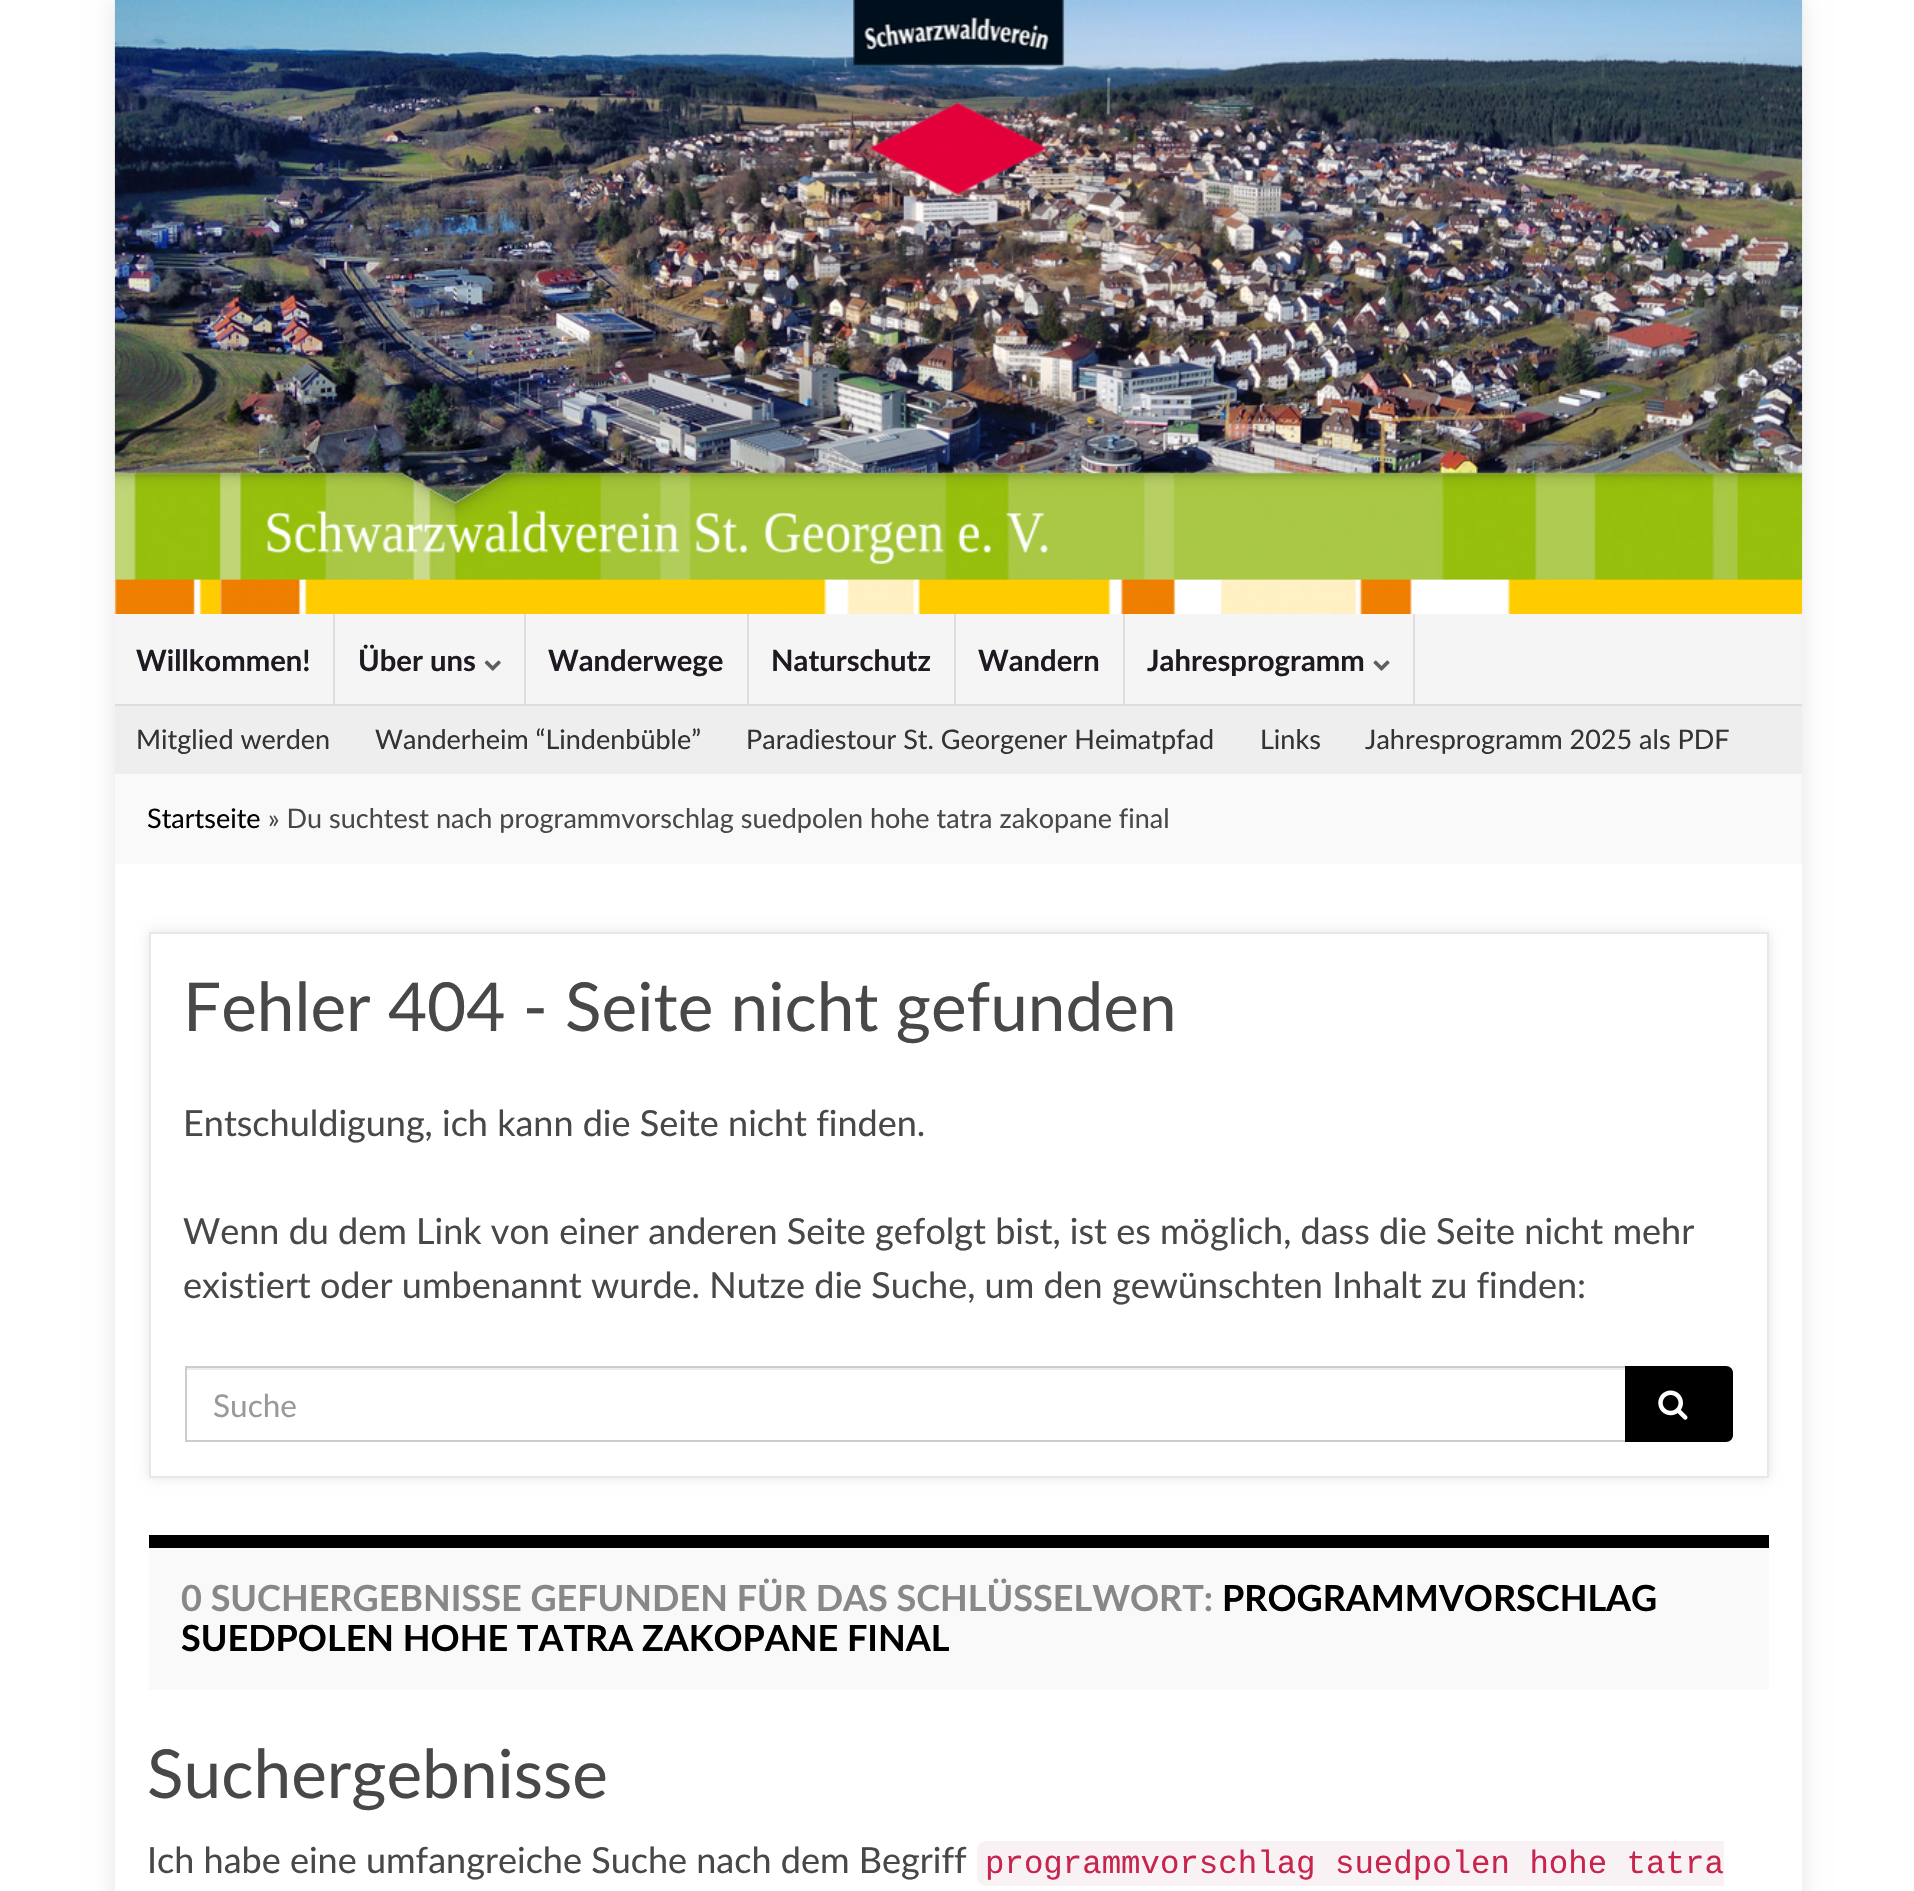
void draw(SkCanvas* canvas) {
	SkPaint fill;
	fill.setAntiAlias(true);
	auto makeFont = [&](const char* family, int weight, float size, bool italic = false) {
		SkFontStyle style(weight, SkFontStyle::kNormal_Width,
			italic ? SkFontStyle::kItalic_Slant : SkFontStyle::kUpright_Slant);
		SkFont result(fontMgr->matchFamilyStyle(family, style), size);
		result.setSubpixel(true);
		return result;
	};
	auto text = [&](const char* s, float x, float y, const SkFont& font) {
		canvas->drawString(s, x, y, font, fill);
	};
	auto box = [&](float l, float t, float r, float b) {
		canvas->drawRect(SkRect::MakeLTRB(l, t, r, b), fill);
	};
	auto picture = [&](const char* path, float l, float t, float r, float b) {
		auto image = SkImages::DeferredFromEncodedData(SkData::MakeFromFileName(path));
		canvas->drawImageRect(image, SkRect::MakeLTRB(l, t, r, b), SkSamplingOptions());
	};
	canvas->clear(0xFFFFFFFF);
	canvas->save();
	canvas->clipPath(SkPathBuilder(SkPathFillType::kEvenOdd).moveTo(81, 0).lineTo(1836, 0).lineTo(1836, 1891).lineTo(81, 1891).close().moveTo(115, 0).lineTo(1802, 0).lineTo(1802, 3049).lineTo(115, 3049).close().detach(), true);
	fill.setColor(0x1A000000);
	fill.setMaskFilter(SkMaskFilter::MakeBlur(kNormal_SkBlurStyle, 11));
	canvas->drawRect(SkRect::MakeLTRB(115, 0, 1802, 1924), fill);
	fill.setMaskFilter(nullptr);
	canvas->restore();
	picture("image0.png", 114, 0, 1803, 614);
	fill.setColor(0xFFF5F5F5);
	box(115, 614, 1802, 704);
	fill.setColor(0xFFDDDDDD);
	box(333, 614, 335, 704);
	box(524, 614, 526, 704);
	picture("image1.png", 484, 660, 501, 671);
	box(747, 614, 749, 704);
	box(954, 614, 956, 704);
	box(1123, 614, 1125, 704);
	box(1413, 614, 1415, 704);
	picture("image2.png", 1373, 660, 1390, 671);
	fill.setColor(0xFFEEEEEE);
	box(115, 706, 1802, 774);
	fill.setColor(0xFFDDDDDD);
	box(115, 704, 1802, 706);
	fill.setColor(0xFFF9F9F9);
	box(115, 774, 1802, 864);
	fill.setColor(0x1A000000);
	fill.setMaskFilter(SkMaskFilter::MakeBlur(kNormal_SkBlurStyle, 5.5f));
	canvas->drawRect(SkRect::MakeLTRB(149, 932, 1769, 1478), fill);
	fill.setMaskFilter(nullptr);
	fill.setColor(0xFFFFFFFF);
	canvas->drawRect(SkRect::MakeLTRB(150, 933, 1768, 1477), fill);
	fill.setStyle(SkPaint::kStroke_Style);
	fill.setStrokeWidth(2);
	fill.setColor(0xFFE9E8E3);
	canvas->drawRect(SkRect::MakeLTRB(150, 933, 1768, 1477), fill);
	fill.setStyle(SkPaint::kFill_Style);
	fill.setColor(0xFFECECEC);
	box(187, 1368, 1625, 1370);
	fill.setStyle(SkPaint::kStroke_Style);
	fill.setColor(0xFFCCCCCC);
	canvas->drawRect(SkRect::MakeLTRB(186, 1367, 1626, 1441), fill);
	fill.setStyle(SkPaint::kFill_Style);
	fill.setColor(0xFF000000);
	canvas->drawPath(SkPathBuilder().moveTo(1625, 1366).lineTo(1726, 1366).cubicTo(1730, 1366, 1733, 1369, 1733, 1373).lineTo(1733, 1435).cubicTo(1733, 1439, 1730, 1442, 1726, 1442).lineTo(1625, 1442).close().detach(), fill);
	picture("image3.png", 1658, 1390, 1688, 1420);
	fill.setColor(0xFFF9F9F9);
	box(149, 1548, 1769, 1690);
	fill.setColor(0xFF000000);
	box(149, 1535, 1769, 1548);
	fill.setColor(0xFFF9F2F4);
	canvas->drawPath(SkPathBuilder().moveTo(986, 1841).lineTo(1724, 1841).lineTo(1724, 1886).lineTo(986, 1886).cubicTo(981, 1886, 977, 1882, 977, 1877).lineTo(977, 1850).cubicTo(977, 1845, 981, 1841, 986, 1841).close().detach(), fill);
	auto font1 = makeFont("Lato", 700, 29.25f);
	fill.setColor(0xFF1F1A22);
	text("Willkommen!", 136, 671, font1);
	text("Über uns", 358, 671, font1);
	text("Wanderwege", 548, 671, font1);
	text("Naturschutz", 771, 671, font1);
	text("Wandern", 978, 671, font1);
	text("Jahresprogramm", 1147, 671, font1);
	auto font2 = makeFont("Lato", 400, 27);
	fill.setColor(0xFF333333);
	text("Mitglied werden", 136, 749, font2);
	text("Wanderheim “Lindenbüble”", 375, 749, font2);
	text("Paradiestour St. Georgener Heimatpfad", 746, 749, font2);
	text("Links", 1260, 749, font2);
	text("Jahresprogramm 2025 als PDF", 1365, 749, font2);
	fill.setColor(0xFF000000);
	text("Startseite", 147, 828, font2);
	fill.setColor(0xFF4A474B);
	text("» Du suchtest nach programmvorschlag suedpolen hohe tatra zakopane final", 268, 828, font2);
	auto font3 = makeFont("Lato", 400, 67.5f);
	text("Fehler 404 - Seite nicht gefunden", 183, 1031, font3);
	auto font4 = makeFont("Lato", 400, 36);
	text("Entschuldigung, ich kann die Seite nicht finden.", 183, 1136, font4);
	text("Wenn du dem Link von einer anderen Seite gefolgt bist, ist es möglich, dass die Seite nicht mehr", 183, 1244, font4);
	text("existiert oder umbenannt wurde. Nutze die Suche, um den gewünschten Inhalt zu finden:", 183, 1298, font4);
	auto font5 = makeFont("Lato", 400, 31.5f);
	fill.setColor(0xFF999999);
	text("Suche", 213, 1417, font5);
	auto font6 = makeFont("Lato", 700, 36);
	fill.setColor(0xFF888888);
	text("0 SUCHERGEBNISSE GEFUNDEN FÜR DAS SCHLÜSSELWORT:", 181, 1611, font6);
	fill.setColor(0xFF000000);
	text("PROGRAMMVORSCHLAG", 1222, 1611, font6);
	text("SUEDPOLEN HOHE TATRA ZAKOPANE FINAL", 181, 1651, font6);
	fill.setColor(0xFF4A474B);
	text("Suchergebnisse", 147, 1798, font3);
	text("Ich habe eine umfangreiche Suche nach dem Begriff", 147, 1873, font4);
	auto font7 = makeFont("Liberation Mono", 400, 32.4f);
	fill.setColor(0xFFC7254E);
	text("programmvorschlag suedpolen hohe tatra", 985, 1873, font7);
}
